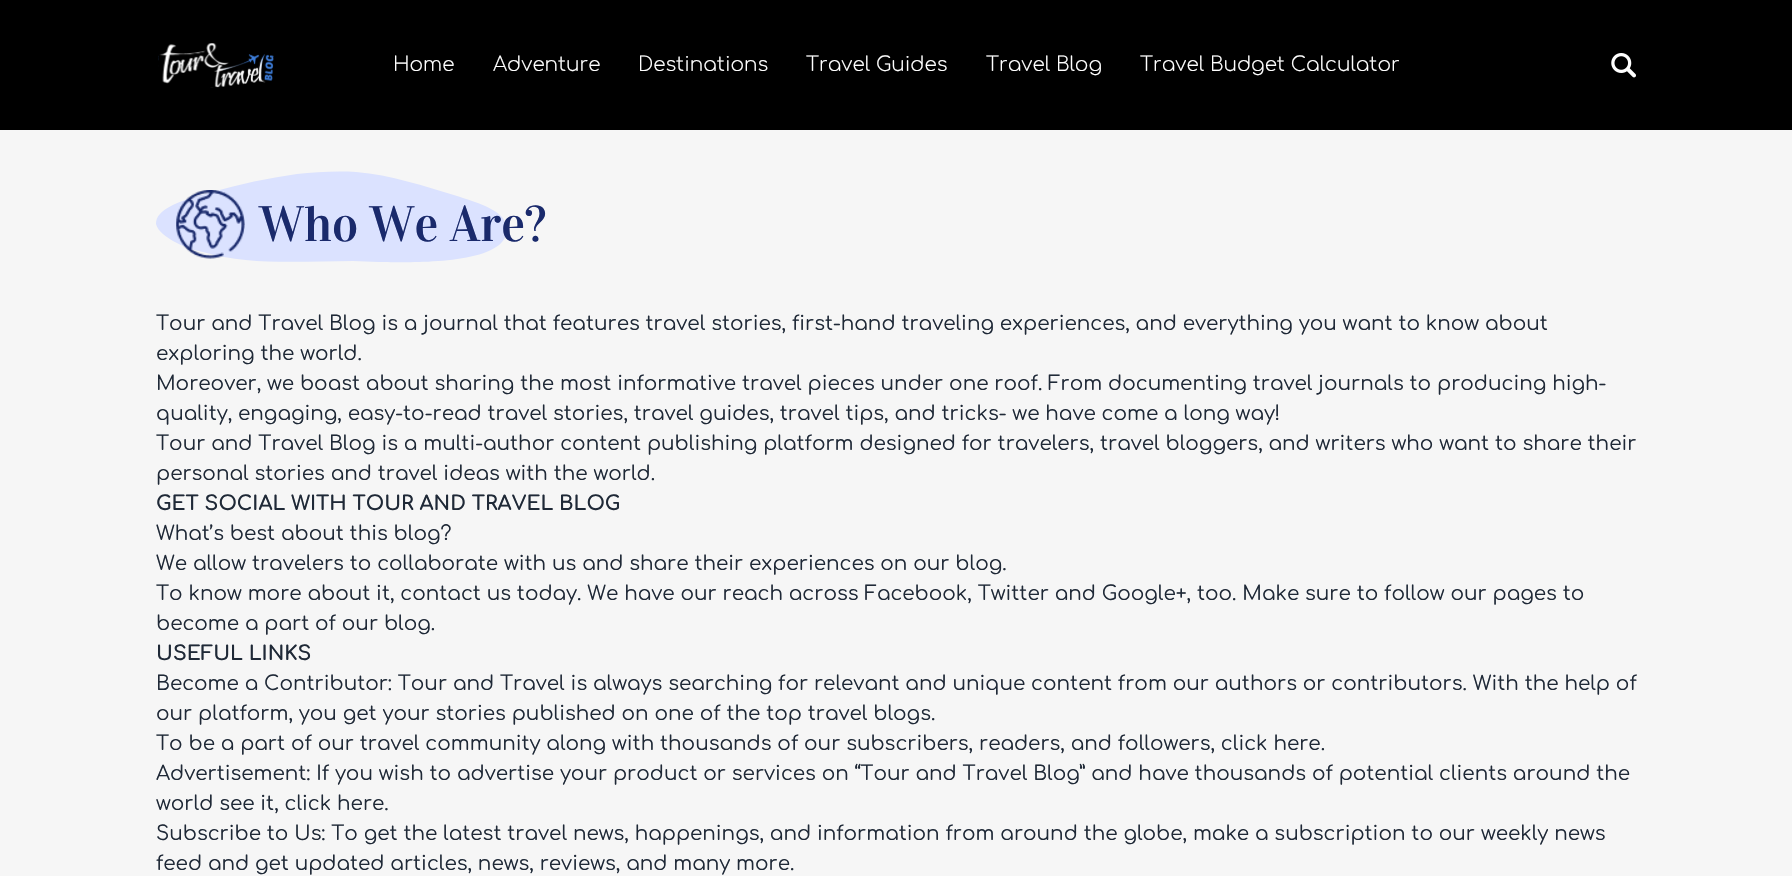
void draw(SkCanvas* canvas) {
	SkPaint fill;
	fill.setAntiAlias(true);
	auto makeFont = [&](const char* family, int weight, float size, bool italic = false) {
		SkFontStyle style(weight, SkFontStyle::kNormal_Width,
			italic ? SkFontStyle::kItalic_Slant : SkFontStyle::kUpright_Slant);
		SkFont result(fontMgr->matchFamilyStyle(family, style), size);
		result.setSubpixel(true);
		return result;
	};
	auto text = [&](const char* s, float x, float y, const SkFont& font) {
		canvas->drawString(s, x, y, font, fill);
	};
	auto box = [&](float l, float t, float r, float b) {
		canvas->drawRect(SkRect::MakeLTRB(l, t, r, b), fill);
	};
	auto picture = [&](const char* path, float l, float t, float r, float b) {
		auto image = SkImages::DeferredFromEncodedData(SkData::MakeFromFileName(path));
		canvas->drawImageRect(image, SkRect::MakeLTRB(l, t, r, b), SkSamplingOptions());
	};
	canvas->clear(0xFFF6F6F6);
	fill.setColor(0xFF000000);
	box(0, 0, 1792, 130);
	picture("image0.png", 158, 43, 274, 88);
	picture("image1.png", 1611, 53, 1636, 78);
	fill.setColor(0xFFDBE2FF);
	canvas->drawPath(SkPathBuilder().moveTo(504, 220).cubicTo(526, 268, 399, 262, 379, 262).lineTo(353, 261).cubicTo(303, 261, 251, 266, 203, 252).cubicTo(192, 250, 182, 246, 173, 241).cubicTo(167, 237, 158, 232, 156, 224).cubicTo(156, 220, 157, 217, 160, 214).cubicTo(170, 203, 197, 196, 212, 192).cubicTo(240, 184, 268, 178, 297, 174).cubicTo(316, 172, 336, 171, 356, 172).cubicTo(391, 175, 424, 186, 457, 196).cubicTo(469, 200, 498, 208, 504, 220).close().detach(), fill);
	picture("image2.png", 176, 190, 245, 259);
	auto font1 = makeFont("Comfortaa", 300, 20);
	fill.setColor(0xFFFFFFFF);
	text("Home", 393, 71, font1);
	text("Adventure", 493, 71, font1);
	text("Destinations", 638, 71, font1);
	text("Travel Guides", 806, 71, font1);
	text("Travel Blog", 986, 71, font1);
	text("Travel Budget Calculator", 1140, 71, font1);
	auto font2 = makeFont("Vidaloka", 400, 50);
	fill.setColor(0xFF1A2A6C);
	text("Who We Are?", 259, 241, font2);
	auto font3 = makeFont("Comfortaa", 400, 20);
	fill.setColor(0xFF1F2937);
	text("Tour and Travel Blog is a journal that features travel stories, first-hand traveling experiences, and everything you want to know about", 156, 330, font3);
	text("exploring the world.", 156, 360, font3);
	text("Moreover, we boast about sharing the most informative travel pieces under one roof. From documenting travel journals to producing high-", 156, 390, font3);
	text("quality, engaging, easy-to-read travel stories, travel guides, travel tips, and tricks- we have come a long way!", 156, 420, font3);
	text("Tour and Travel Blog is a multi-author content publishing platform designed for travelers, travel bloggers, and writers who want to share their", 156, 450, font3);
	text("personal stories and travel ideas with the world.", 156, 480, font3);
	auto font4 = makeFont("Comfortaa", 700, 20);
	text("GET SOCIAL WITH TOUR AND TRAVEL BLOG", 156, 510, font4);
	text("What’s best about this blog?", 156, 540, font3);
	text("We allow travelers to collaborate with us and share their experiences on our blog.", 156, 570, font3);
	text("To know more about it, contact us today. We have our reach across Facebook, Twitter and Google+, too. Make sure to follow our pages to", 156, 600, font3);
	text("become a part of our blog.", 156, 630, font3);
	text("USEFUL LINKS", 156, 660, font4);
	text("Become a Contributor: Tour and Travel is always searching for relevant and unique content from our authors or contributors. With the help of", 156, 690, font3);
	text("our platform, you get your stories published on one of the top travel blogs.", 156, 720, font3);
	text("To be a part of our travel community along with thousands of our subscribers, readers, and followers, click here.", 156, 750, font3);
	text("Advertisement: If you wish to advertise your product or services on “Tour and Travel Blog” and have thousands of potential clients around the", 156, 780, font3);
	text("world see it, click here.", 156, 810, font3);
	text("Subscribe to Us: To get the latest travel news, happenings, and information from around the globe, make a subscription to our weekly news", 156, 840, font3);
	text("feed and get updated articles, news, reviews, and many more.", 156, 870, font3);
}
